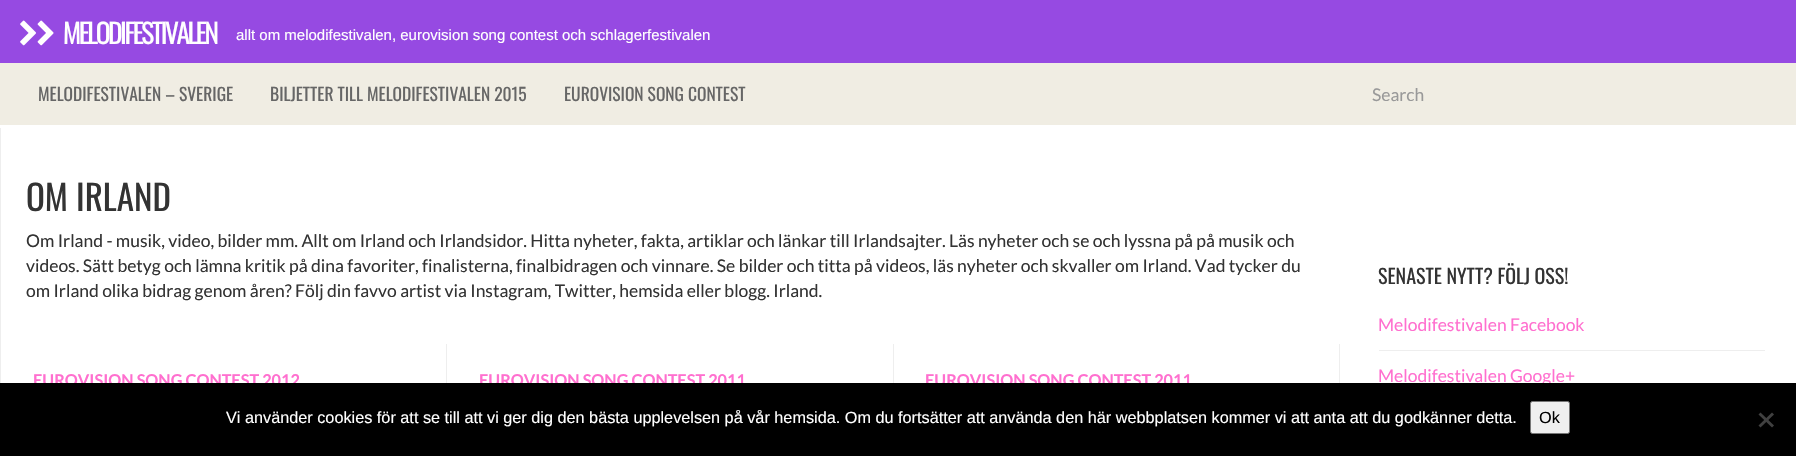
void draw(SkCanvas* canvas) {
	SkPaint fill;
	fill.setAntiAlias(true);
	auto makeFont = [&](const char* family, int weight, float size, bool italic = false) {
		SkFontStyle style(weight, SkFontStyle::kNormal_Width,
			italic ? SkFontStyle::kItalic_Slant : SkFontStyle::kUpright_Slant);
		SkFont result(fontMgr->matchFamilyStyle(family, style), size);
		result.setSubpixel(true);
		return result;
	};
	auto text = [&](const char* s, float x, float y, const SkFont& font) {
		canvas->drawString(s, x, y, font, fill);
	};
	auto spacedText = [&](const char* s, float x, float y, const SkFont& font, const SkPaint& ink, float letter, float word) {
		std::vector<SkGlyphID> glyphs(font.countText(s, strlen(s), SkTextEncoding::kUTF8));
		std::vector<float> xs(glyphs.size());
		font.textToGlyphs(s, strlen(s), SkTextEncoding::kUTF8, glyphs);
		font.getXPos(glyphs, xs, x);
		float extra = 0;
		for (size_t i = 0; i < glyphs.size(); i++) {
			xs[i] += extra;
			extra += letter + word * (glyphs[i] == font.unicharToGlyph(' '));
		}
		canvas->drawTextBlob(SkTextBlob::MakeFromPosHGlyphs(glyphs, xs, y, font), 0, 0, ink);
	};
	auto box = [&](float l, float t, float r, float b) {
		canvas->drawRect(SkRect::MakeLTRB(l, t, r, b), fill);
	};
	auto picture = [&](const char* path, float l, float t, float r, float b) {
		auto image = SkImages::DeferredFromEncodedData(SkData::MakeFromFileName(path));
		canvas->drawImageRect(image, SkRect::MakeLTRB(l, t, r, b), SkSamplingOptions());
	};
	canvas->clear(0xFFFFFFFF);
	fill.setColor(0xFF964AE2);
	box(0, 0, 1796, 63);
	picture("image0.png", 20, 20, 36, 46);
	picture("image1.png", 37, 20, 54, 46);
	fill.setColor(0xFFF0EDE3);
	box(0, 63, 1796, 125);
	fill.setColor(0xFFEEEEEE);
	box(0, 128, 1, 383);
	box(446, 344, 447, 383);
	box(893, 344, 894, 383);
	box(1339, 344, 1340, 383);
	box(1379, 350, 1765, 351);
	auto font1 = makeFont("Oswald", 400, 27.5f);
	fill.setColor(0xFFFFFFFF);
	spacedText("MELODIFESTIVALEN", 63, 44, font1, fill, -2.5f, 0);
	auto font2 = makeFont("Liberation Sans", 400, 15);
	text("allt om melodifestivalen, eurovision song contest och schlagerfestivalen", 236, 40, font2);
	auto font3 = makeFont("Oswald", 400, 17.5f);
	fill.setColor(0xFF666666);
	text("MELODIFESTIVALEN – SVERIGE", 38, 101, font3);
	text("BILJETTER TILL MELODIFESTIVALEN 2015", 270, 101, font3);
	text("EUROVISION SONG CONTEST", 564, 101, font3);
	auto font4 = makeFont("Lato", 400, 17.5f);
	fill.setColor(0xFF999999);
	text("Search", 1372, 101, font4);
	auto font5 = makeFont("Oswald", 400, 35);
	fill.setColor(0xFF333333);
	text("OM IRLAND", 26, 211, font5);
	text("Om Irland - musik, video, bilder mm. Allt om Irland och Irlandsidor. Hitta nyheter, fakta, artiklar och länkar till Irlandsajter. Läs nyheter och se och lyssna på på musik och", 26, 247, font4);
	text("videos. Sätt betyg och lämna kritik på dina favoriter, finalisterna, finalbidragen och vinnare. Se bilder och titta på videos, läs nyheter och skvaller om Irland. Vad tycker du", 26, 272, font4);
	text("om Irland olika bidrag genom åren? Följ din favvo artist via Instagram, Twitter, hemsida eller blogg. Irland.", 26, 297, font4);
	auto font6 = makeFont("Lato", 700, 16.25f);
	fill.setColor(0xFFFF6FCF);
	text("EUROVISION SONG CONTEST 2012", 33, 386, font6);
	text("EUROVISION SONG CONTEST 2011", 479, 386, font6);
	text("EUROVISION SONG CONTEST 2011", 925, 386, font6);
	auto font7 = makeFont("Oswald", 400, 20);
	fill.setColor(0xFF333333);
	text("SENASTE NYTT? FÖLJ OSS!", 1378, 284, font7);
	fill.setColor(0xFFFF6FCF);
	text("Melodifestivalen Facebook", 1378, 331, font4);
	text("Melodifestivalen Google+", 1378, 382, font4);
	fill.setColor(0xFF000000);
	box(0, 383, 1796, 456);
	auto font8 = makeFont("Liberation Sans", 400, 16.25f);
	fill.setColor(0xFFFFFFFF);
	text("Vi använder cookies för att se till att vi ger dig den bästa upplevelsen på vår hemsida. Om du fortsätter att använda den här webbplatsen kommer vi att anta att du godkänner detta.", 226, 423, font8);
	fill.setColor(0xFFEFEFEF);
	canvas->drawRoundRect(SkRect::MakeLTRB(1530.5f, 401.5f, 1569.5f, 433.5f), 2, 2, fill);
	fill.setStyle(SkPaint::kStroke_Style);
	fill.setStrokeWidth(1);
	fill.setColor(0xFF767676);
	canvas->drawRoundRect(SkRect::MakeLTRB(1530.5f, 401.5f, 1569.5f, 433.5f), 2, 2, fill);
	fill.setStyle(SkPaint::kFill_Style);
	fill.setColor(0xFF000000);
	text("Ok", 1539, 423, font8);
	fill.setColor(0xFF404040);
	canvas->drawPath(SkPathBuilder().moveTo(1772, 412.5f).lineTo(1774, 414.5f).lineTo(1760.5f, 427.5f).lineTo(1758.5f, 425.5f).close().detach(), fill);
	canvas->drawPath(SkPathBuilder().moveTo(1758.5f, 414.5f).lineTo(1760.5f, 412.5f).lineTo(1774, 425.5f).lineTo(1772, 427.5f).close().detach(), fill);
}
